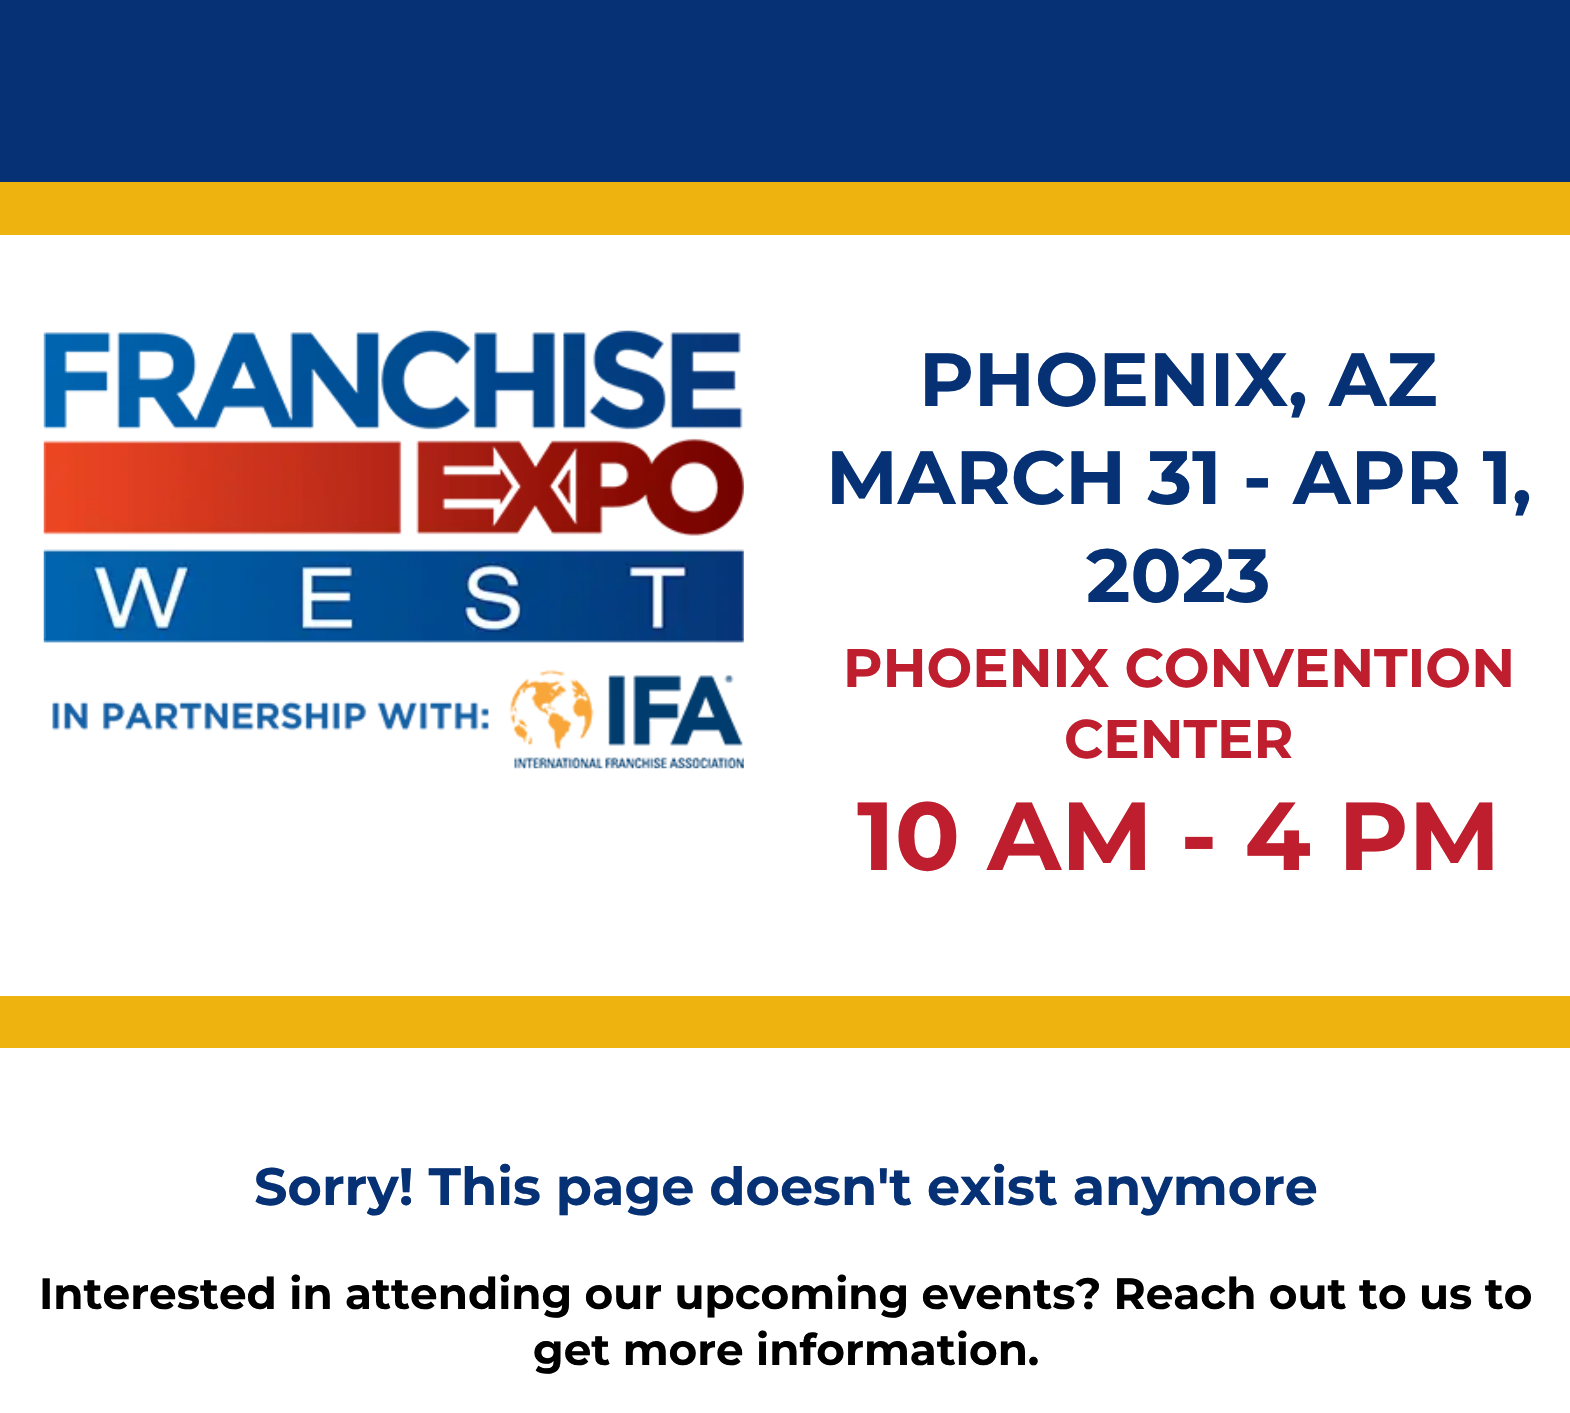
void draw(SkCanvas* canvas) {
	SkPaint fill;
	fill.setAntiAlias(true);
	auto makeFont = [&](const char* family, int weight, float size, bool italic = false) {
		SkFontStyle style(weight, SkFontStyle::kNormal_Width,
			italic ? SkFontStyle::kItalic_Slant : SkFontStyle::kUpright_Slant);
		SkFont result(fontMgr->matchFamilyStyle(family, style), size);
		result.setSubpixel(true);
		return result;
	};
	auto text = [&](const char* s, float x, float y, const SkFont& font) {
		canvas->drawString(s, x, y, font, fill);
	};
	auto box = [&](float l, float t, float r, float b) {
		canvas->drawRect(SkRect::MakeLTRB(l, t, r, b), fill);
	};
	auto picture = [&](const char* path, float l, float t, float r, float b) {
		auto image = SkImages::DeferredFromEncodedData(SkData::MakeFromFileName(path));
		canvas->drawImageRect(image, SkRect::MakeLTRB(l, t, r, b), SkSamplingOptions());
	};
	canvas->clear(0xFF063275);
	fill.setColor(0xFFEFB310);
	box(0, 182, 1570, 235);
	fill.setColor(0xFFFFFFFF);
	box(0, 235, 1570, 996);
	picture("image0.png", 43, 330, 744, 769);
	fill.setColor(0xFFEFB310);
	box(0, 996, 1570, 1048);
	fill.setColor(0xFFFFFFFF);
	box(0, 1048, 1570, 1413);
	auto font1 = makeFont("Montserrat", 700, 75.25f);
	fill.setColor(0xFF063275);
	text("PHOENIX, AZ", 919, 406, font1);
	text("MARCH 31 - APR 1,", 826, 504, font1);
	text("2023", 1086, 602, font1);
	auto font2 = makeFont("Montserrat", 700, 54.25f);
	fill.setColor(0xFFBE1E2D);
	text("PHOENIX CONVENTION", 843, 687, font2);
	text("CENTER", 1064, 758, font2);
	auto font3 = makeFont("Montserrat", 700, 96.25f);
	text("10 AM - 4 PM", 857, 870, font3);
	auto font4 = makeFont("Montserrat", 700, 52.5f);
	fill.setColor(0xFF063275);
	text("Sorry! This page doesn't exist anymore", 254, 1205, font4);
	auto font5 = makeFont("Montserrat", 700, 43.75f);
	fill.setColor(0xFF000000);
	text("Interested in attending our upcoming events? Reach out to us to", 39, 1309, font5);
	text("get more information.", 533, 1365, font5);
}
